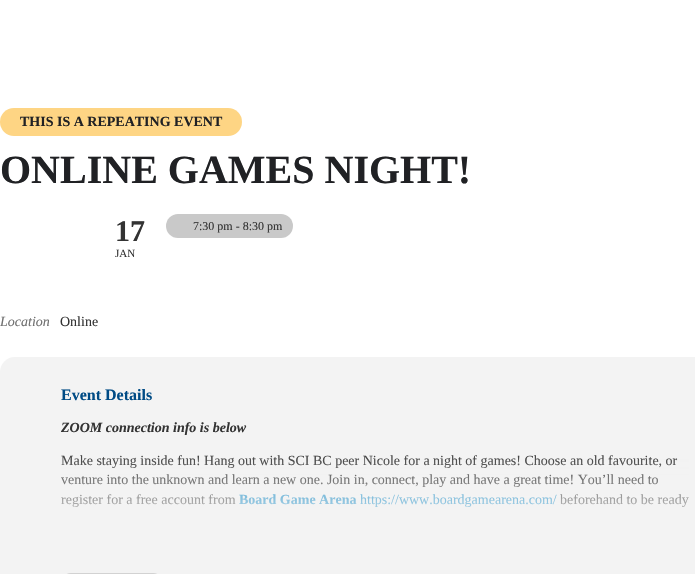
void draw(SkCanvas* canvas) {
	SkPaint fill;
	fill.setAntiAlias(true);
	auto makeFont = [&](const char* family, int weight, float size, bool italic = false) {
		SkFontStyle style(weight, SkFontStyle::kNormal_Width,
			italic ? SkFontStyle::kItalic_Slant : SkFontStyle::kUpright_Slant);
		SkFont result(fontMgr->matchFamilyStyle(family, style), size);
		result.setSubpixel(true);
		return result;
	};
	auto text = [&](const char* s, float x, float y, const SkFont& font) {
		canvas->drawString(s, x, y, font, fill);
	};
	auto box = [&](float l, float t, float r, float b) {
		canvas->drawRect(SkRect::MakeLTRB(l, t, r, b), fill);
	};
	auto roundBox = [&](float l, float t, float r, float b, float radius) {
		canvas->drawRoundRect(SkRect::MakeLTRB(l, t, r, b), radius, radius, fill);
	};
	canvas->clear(0xFFFFFFFF);
	fill.setColor(0xFFFED584);
	roundBox(0, 108, 242, 136, 14);
	fill.setColor(0xFFC9C9C9);
	roundBox(166, 214, 293, 238, 12);
	fill.setColor(0xFFF3F3F3);
	roundBox(0, 357, 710, 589, 15);
	fill.setColor(0xFFD2D2D2);
	roundBox(61, 573, 163, 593, 18.5f);
	auto font1 = makeFont("Liberation Serif", 700, 14);
	fill.setColor(0xFF202124);
	text("THIS IS A REPEATING EVENT", 20, 126, font1);
	auto font2 = makeFont("Liberation Serif", 700, 40);
	text("ONLINE GAMES NIGHT!", 0, 183, font2);
	auto font3 = makeFont("Liberation Serif", 700, 30);
	fill.setColor(0xFF333333);
	text("17", 115, 241, font3);
	auto font4 = makeFont("Liberation Serif", 400, 11);
	text("JAN", 115, 257, font4);
	auto font5 = makeFont("Liberation Serif", 400, 12);
	text("7:30 pm - 8:30 pm", 193, 230, font5);
	auto font6 = makeFont("Liberation Serif", 400, 14, true);
	fill.setColor(0xFF707070);
	text("Location", 0, 326, font6);
	auto font7 = makeFont("Liberation Serif", 400, 14);
	fill.setColor(0xFF333333);
	text("Online", 60, 326, font7);
	auto font8 = makeFont("Liberation Serif", 700, 16);
	fill.setColor(0xFF004B85);
	text("Event Details", 61, 400, font8);
	auto font9 = makeFont("Liberation Serif", 700, 14, true);
	fill.setColor(0xFF333333);
	text("ZOOM connection info is below", 61, 432, font9);
	text("Make staying inside fun! Hang out with SCI BC peer Nicole for a night of games! Choose an old favourite, or", 61, 465, font7);
	text("venture into the unknown and learn a new one. Join in, connect, play and have a great time! You’ll need to", 61, 484, font7);
	text("register for a free account from", 61, 504, font7);
	fill.setColor(0xFF0081C2);
	text("Board Game Arena", 239, 504, font1);
	text("https://www.boardgamearena.com/", 360, 504, font7);
	fill.setColor(0xFF333333);
	text("beforehand to be ready", 560, 504, font7);
	{
		const SkColor colors[] = {0xFFF3F3F3, 0x00F3F3F3};
		const float stops[] = {0.2f, 0.8f};
		const SkPoint ends[] = {{381, 568}, {381, 418}};
		fill.setShader(SkGradientShader::MakeLinear(ends, colors, stops, 2, SkTileMode::kClamp));
		fill.setAlpha(255);
	}
	box(61, 455, 689, 507);
}
